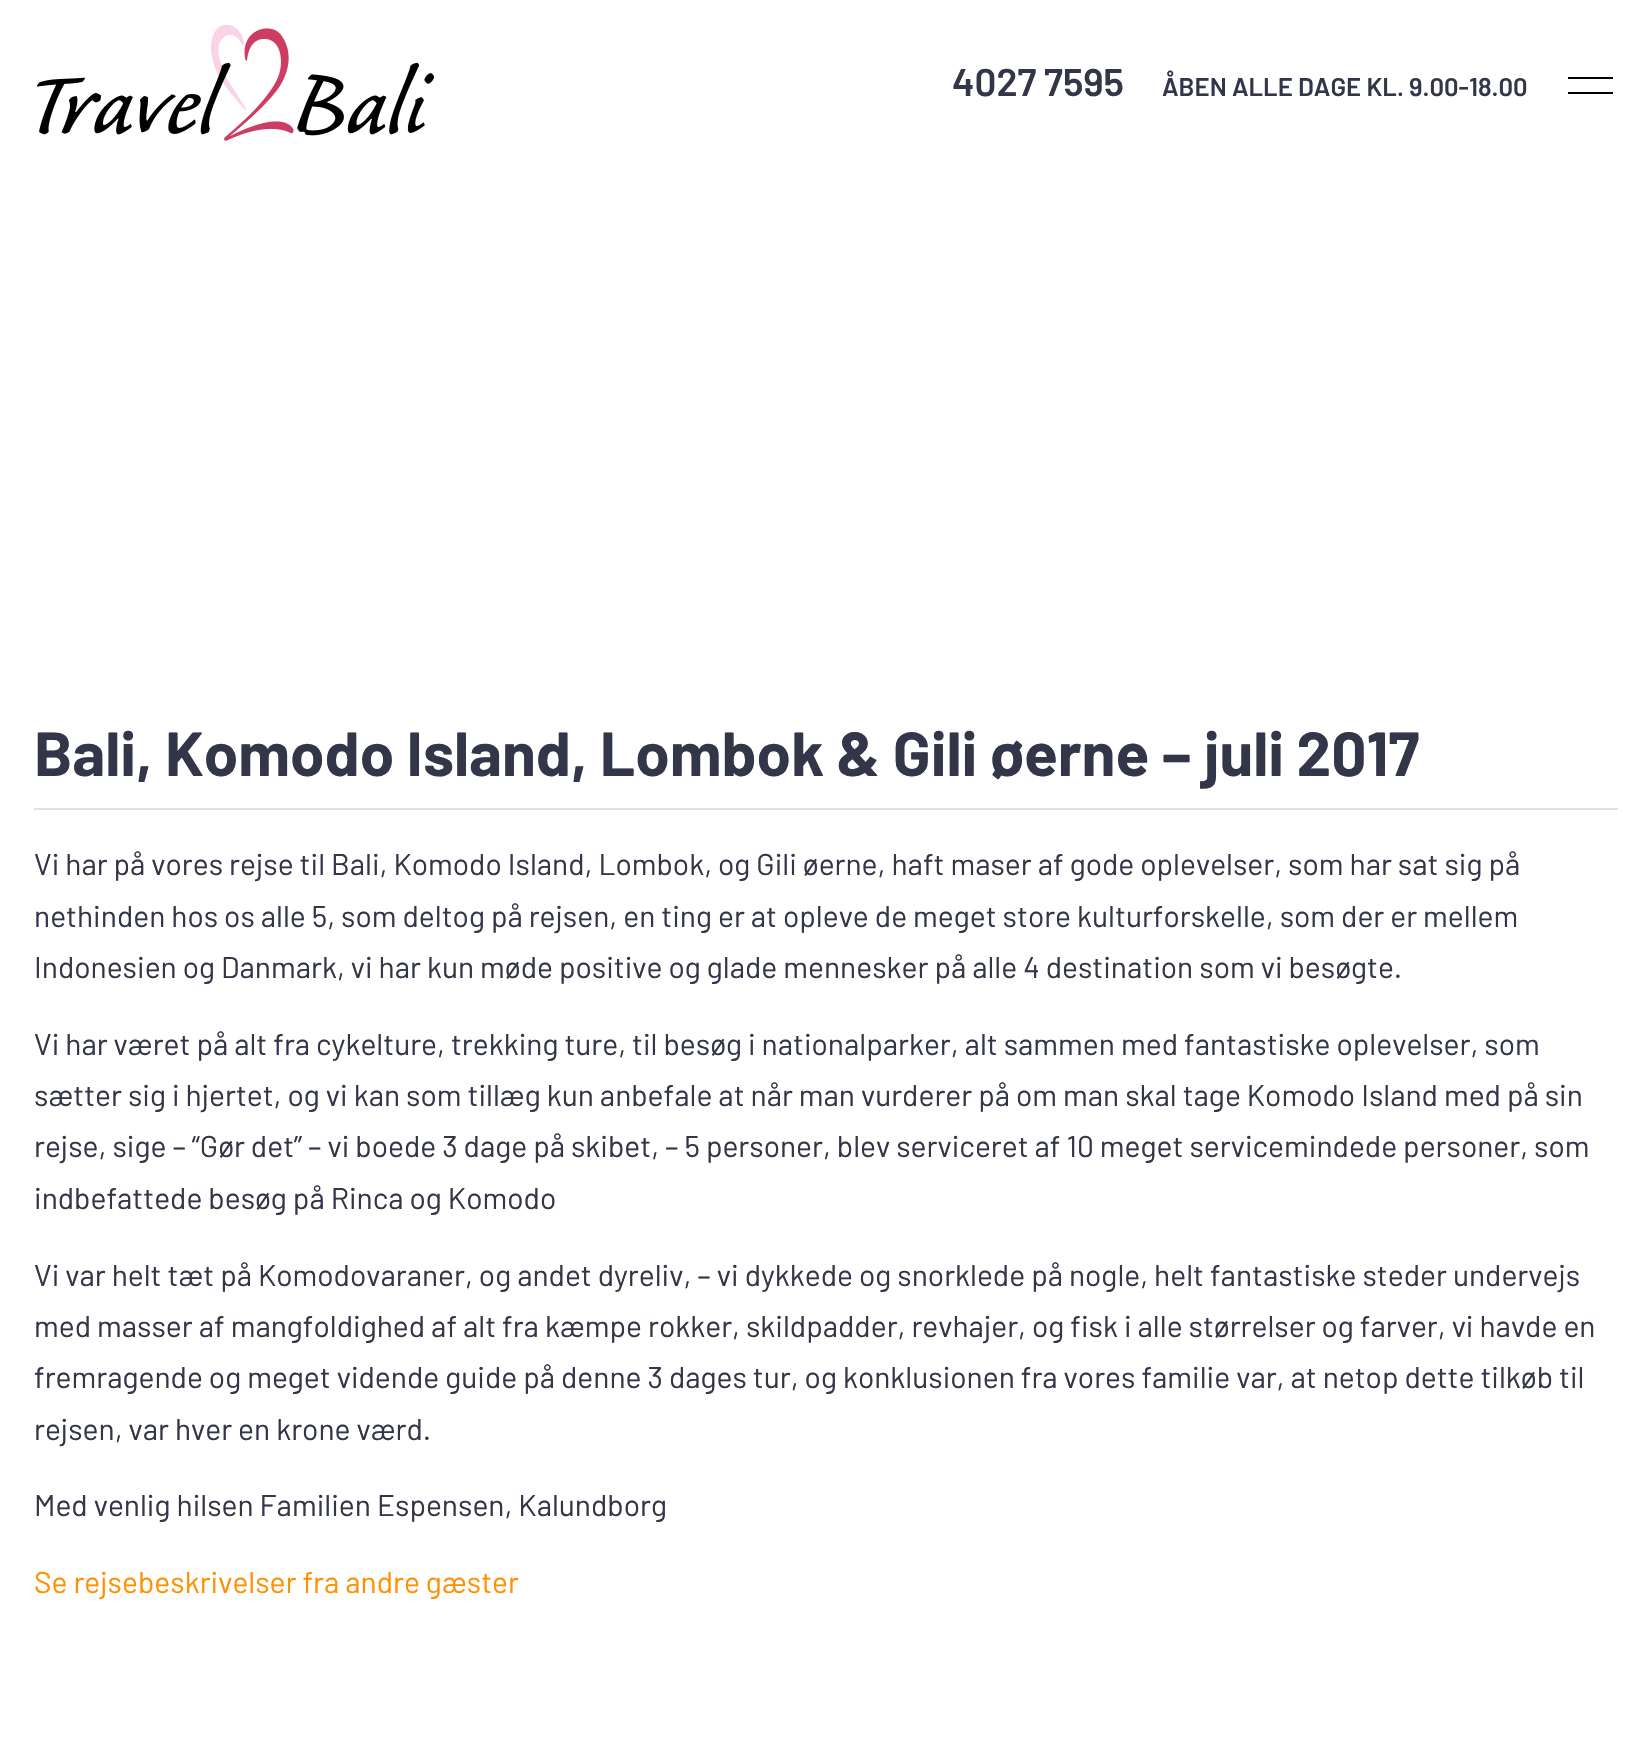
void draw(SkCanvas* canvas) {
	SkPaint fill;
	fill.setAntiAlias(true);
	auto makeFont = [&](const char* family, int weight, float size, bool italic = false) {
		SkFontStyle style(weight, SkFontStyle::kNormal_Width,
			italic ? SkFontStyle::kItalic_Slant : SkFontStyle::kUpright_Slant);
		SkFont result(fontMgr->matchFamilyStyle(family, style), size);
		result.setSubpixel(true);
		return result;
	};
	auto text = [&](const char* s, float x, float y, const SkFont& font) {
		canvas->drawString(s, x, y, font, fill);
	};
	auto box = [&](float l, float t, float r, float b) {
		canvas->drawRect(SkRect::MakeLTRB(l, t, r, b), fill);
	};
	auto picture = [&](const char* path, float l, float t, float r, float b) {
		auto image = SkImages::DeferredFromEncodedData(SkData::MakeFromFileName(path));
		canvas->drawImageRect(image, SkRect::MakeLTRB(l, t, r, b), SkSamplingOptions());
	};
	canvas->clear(0xFFFFFFFF);
	picture("image0.png", 36, 24, 435, 141);
	fill.setColor(0xFF000000);
	box(1568, 77, 1613, 79);
	box(1568, 92, 1613, 94);
	fill.setColor(0xFFDEE2E6);
	box(34, 808, 1618, 810);
	auto font1 = makeFont("Barlow", 600, 38.5f);
	fill.setColor(0xFF333548);
	text("4027 7595", 952, 96, font1);
	auto font2 = makeFont("Barlow", 600, 25.6f);
	text("ÅBEN ALLE DAGE KL. 9.00-18.00", 1162, 96, font2);
	auto font3 = makeFont("Barlow", 700, 62);
	text("Bali, Komodo Island, Lombok & Gili øerne – juli 2017", 34, 776, font3);
	auto font4 = makeFont("Barlow", 400, 29.93f);
	text("Vi har på vores rejse til Bali, Komodo Island, Lombok, og Gili øerne, haft maser af gode oplevelser, som har sat sig på", 34, 875, font4);
	text("nethinden hos os alle 5, som deltog på rejsen, en ting er at opleve de meget store kulturforskelle, som der er mellem", 34, 927, font4);
	text("Indonesien og Danmark, vi har kun møde positive og glade mennesker på alle 4 destination som vi besøgte.", 34, 978, font4);
	text("Vi har været på alt fra cykelture, trekking ture, til besøg i nationalparker, alt sammen med fantastiske oplevelser, som", 34, 1055, font4);
	text("sætter sig i hjertet, og vi kan som tillæg kun anbefale at når man vurderer på om man skal tage Komodo Island med på sin", 34, 1106, font4);
	text("rejse, sige – “Gør det” – vi boede 3 dage på skibet, – 5 personer, blev serviceret af 10 meget servicemindede personer, som", 34, 1157, font4);
	text("indbefattede besøg på Rinca og Komodo", 34, 1209, font4);
	text("Vi var helt tæt på Komodovaraner, og andet dyreliv, – vi dykkede og snorklede på nogle, helt fantastiske steder undervejs", 34, 1286, font4);
	text("med masser af mangfoldighed af alt fra kæmpe rokker, skildpadder, revhajer, og fisk i alle størrelser og farver, vi havde en", 34, 1337, font4);
	text("fremragende og meget vidende guide på denne 3 dages tur, og konklusionen fra vores familie var, at netop dette tilkøb til", 34, 1388, font4);
	text("rejsen, var hver en krone værd.", 34, 1440, font4);
	text("Med venlig hilsen Familien Espensen, Kalundborg", 34, 1516, font4);
	fill.setColor(0xFFFF9000);
	text("Se rejsebeskrivelser fra andre gæster", 34, 1593, font4);
}
